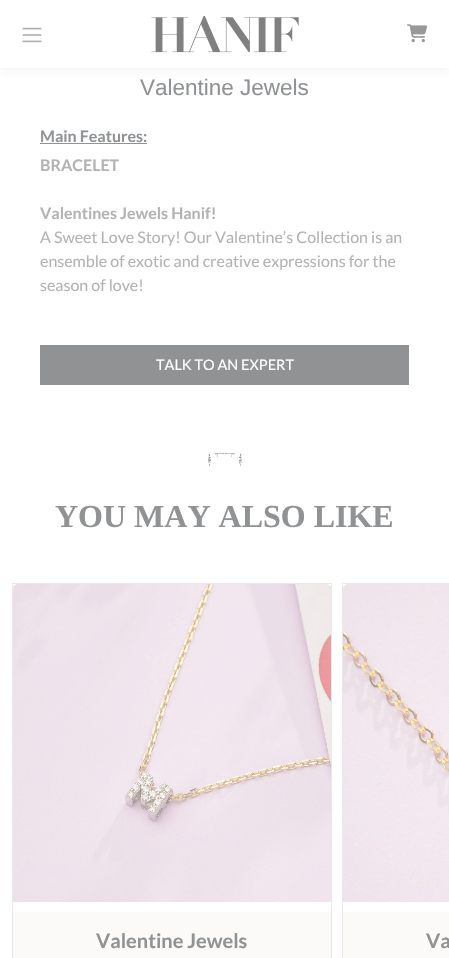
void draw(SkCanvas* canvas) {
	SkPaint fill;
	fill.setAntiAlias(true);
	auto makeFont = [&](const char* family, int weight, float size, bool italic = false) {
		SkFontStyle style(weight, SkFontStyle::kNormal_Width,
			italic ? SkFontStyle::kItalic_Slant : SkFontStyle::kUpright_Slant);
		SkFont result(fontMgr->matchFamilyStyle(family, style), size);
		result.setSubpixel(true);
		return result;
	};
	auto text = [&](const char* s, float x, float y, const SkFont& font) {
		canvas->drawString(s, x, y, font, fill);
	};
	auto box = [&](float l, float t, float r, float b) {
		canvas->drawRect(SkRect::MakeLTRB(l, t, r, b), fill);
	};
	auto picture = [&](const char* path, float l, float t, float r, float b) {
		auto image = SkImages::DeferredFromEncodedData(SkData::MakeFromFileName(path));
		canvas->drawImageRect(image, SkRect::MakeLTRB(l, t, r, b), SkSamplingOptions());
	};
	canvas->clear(0xFFFFFFFF);
	fill.setColor(0x1A808080);
	fill.setMaskFilter(SkMaskFilter::MakeBlur(kNormal_SkBlurStyle, 5));
	canvas->drawRect(SkRect::MakeLTRB(0, 2, 449, 70), fill);
	fill.setMaskFilter(nullptr);
	fill.setColor(0xFFFFFFFF);
	box(0, 0, 449, 68);
	picture("image0.png", 22, 27, 42, 43);
	picture("image1.png", 151, 15, 299, 53);
	picture("image2.png", 407, 24, 428, 43);
	fill.setColor(0xFF909294);
	box(40, 143, 147, 144);
	box(40, 345, 409, 385);
	picture("image3.png", 208, 453, 242, 466);
	fill.setStyle(SkPaint::kStroke_Style);
	fill.setStrokeWidth(1);
	fill.setColor(0xFFE9E9E9);
	canvas->drawRect(SkRect::MakeLTRB(12.5f, 583.5f, 331.5f, 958.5f), fill);
	picture("image4.png", 13, 584, 331, 902);
	fill.setStyle(SkPaint::kFill_Style);
	fill.setColor(0xFFFBFAF9);
	box(13, 912, 331, 958);
	fill.setStyle(SkPaint::kStroke_Style);
	fill.setColor(0xFFE9E9E9);
	canvas->drawRect(SkRect::MakeLTRB(342.5f, 583.5f, 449.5f, 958.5f), fill);
	picture("image5.png", 343, 584, 449, 902);
	fill.setStyle(SkPaint::kFill_Style);
	fill.setColor(0xFFFBFAF9);
	box(343, 912, 449, 958);
	auto font1 = makeFont("Liberation Sans", 400, 22.5f);
	fill.setColor(0xFF909294);
	text("Valentine Jewels", 140, 95, font1);
	auto font2 = makeFont("Lato", 700, 16);
	text("Main Features:", 40, 142, font2);
	fill.setColor(0xFFB3B3B3);
	text("BRACELET", 40, 171, font2);
	text("Valentines Jewels Hanif!", 40, 219, font2);
	auto font3 = makeFont("Lato", 400, 16);
	text("A Sweet Love Story! Our Valentine’s Collection is an", 40, 243, font3);
	text("ensemble of exotic and creative expressions for the", 40, 267, font3);
	text("season of love!", 40, 291, font3);
	auto font4 = makeFont("Lato", 400, 14.5f);
	fill.setColor(0xFFFFFFFF);
	text("TALK TO AN EXPERT", 156, 370, font4);
	auto font5 = makeFont("Liberation Serif", 700, 32);
	fill.setColor(0xFF909294);
	text("YOU MAY ALSO LIKE", 55, 527, font5);
	auto font6 = makeFont("Lato", 700, 20);
	text("Valentine Jewels", 96, 948, font6);
	text("Va", 426, 948, font6);
}
